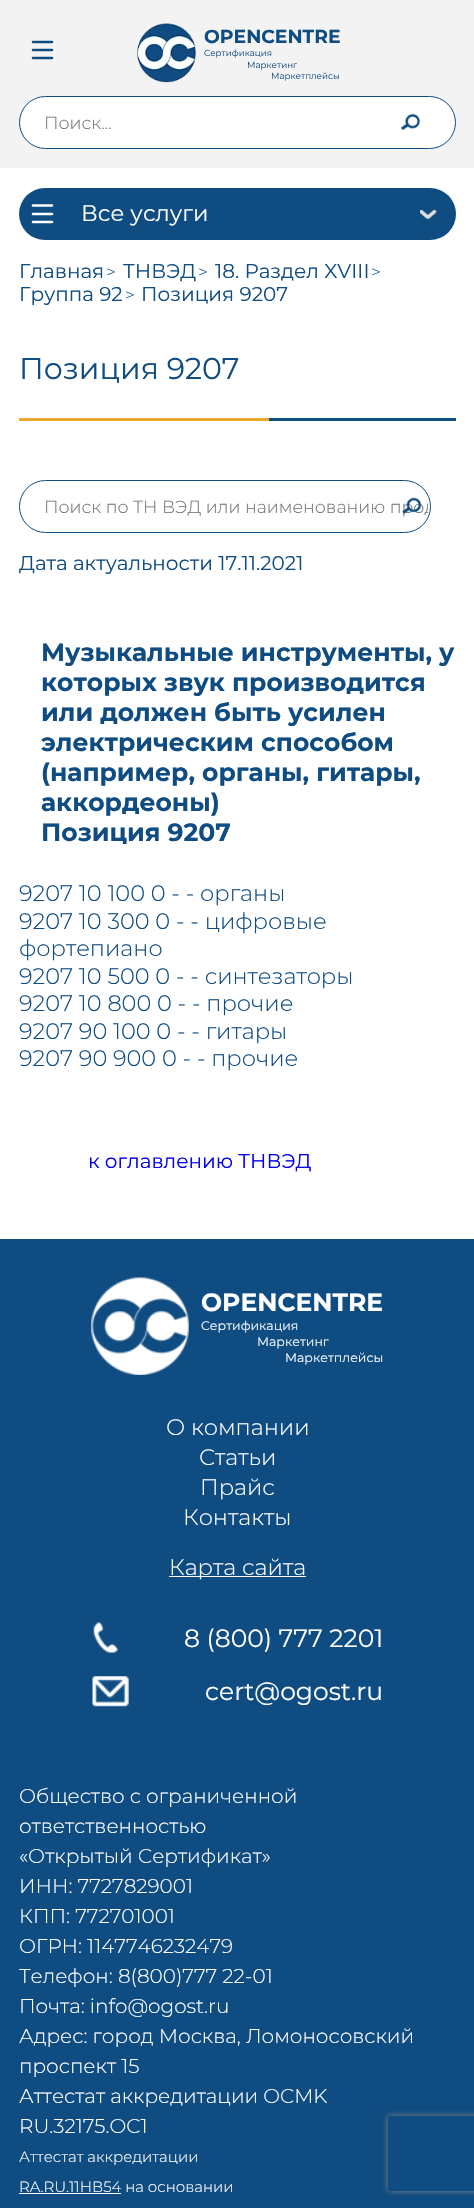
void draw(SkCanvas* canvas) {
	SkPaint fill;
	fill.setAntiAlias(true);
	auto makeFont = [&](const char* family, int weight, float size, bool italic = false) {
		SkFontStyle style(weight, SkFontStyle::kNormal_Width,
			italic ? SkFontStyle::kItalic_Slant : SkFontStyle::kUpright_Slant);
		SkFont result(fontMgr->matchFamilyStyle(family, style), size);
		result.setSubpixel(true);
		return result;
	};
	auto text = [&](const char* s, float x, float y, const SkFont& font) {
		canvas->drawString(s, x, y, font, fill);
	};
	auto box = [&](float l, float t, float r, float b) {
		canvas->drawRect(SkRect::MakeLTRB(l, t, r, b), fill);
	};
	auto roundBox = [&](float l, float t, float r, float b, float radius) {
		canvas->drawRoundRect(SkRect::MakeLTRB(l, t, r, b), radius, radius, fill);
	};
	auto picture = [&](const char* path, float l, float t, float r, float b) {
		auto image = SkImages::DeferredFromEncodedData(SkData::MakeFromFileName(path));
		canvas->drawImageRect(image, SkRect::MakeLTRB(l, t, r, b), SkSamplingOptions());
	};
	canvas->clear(0xFFFFFFFF);
	fill.setColor(0xFFF3F3F3);
	box(0, 0, 474, 168);
	fill.setStyle(SkPaint::kStroke_Style);
	fill.setStrokeWidth(2.6f);
	fill.setStrokeCap(SkPaint::kRound_Cap);
	fill.setColor(0xFF0F4C81);
	canvas->drawPath(SkPathBuilder().moveTo(33, 42).lineTo(52, 42).moveTo(33, 50).lineTo(52, 50).moveTo(33, 58).lineTo(52, 58).detach(), fill);
	picture("image0.png", 136, 23, 196, 83);
	fill.setStyle(SkPaint::kFill_Style);
	fill.setColor(0xFFFFFFFF);
	canvas->drawRoundRect(SkRect::MakeLTRB(19.5f, 96.5f, 455.5f, 148.5f), 26, 26, fill);
	fill.setStyle(SkPaint::kStroke_Style);
	fill.setStrokeWidth(1);
	fill.setStrokeCap(SkPaint::kButt_Cap);
	fill.setColor(0xFF0F4C81);
	canvas->drawRoundRect(SkRect::MakeLTRB(19.5f, 96.5f, 455.5f, 148.5f), 26, 26, fill);
	picture("image1.png", 401, 113, 420, 130);
	fill.setStyle(SkPaint::kFill_Style);
	roundBox(19, 188, 456, 240, 26);
	fill.setStyle(SkPaint::kStroke_Style);
	fill.setStrokeWidth(2.6f);
	fill.setStrokeCap(SkPaint::kRound_Cap);
	fill.setColor(0xFFFFFFFF);
	canvas->drawPath(SkPathBuilder().moveTo(33, 205.5f).lineTo(52, 205.5f).moveTo(33, 214).lineTo(52, 214).moveTo(33, 222).lineTo(52, 222).detach(), fill);
	picture("image2.png", 420, 210, 437, 219);
	fill.setStyle(SkPaint::kFill_Style);
	fill.setColor(0xFFEAA928);
	box(19, 418, 269, 421);
	fill.setColor(0xFF0F4C81);
	box(269, 418, 456, 421);
	fill.setStyle(SkPaint::kStroke_Style);
	fill.setStrokeWidth(1);
	fill.setStrokeCap(SkPaint::kButt_Cap);
	canvas->drawRoundRect(SkRect::MakeLTRB(19.5f, 480.5f, 430.5f, 532.5f), 26, 26, fill);
	fill.setStyle(SkPaint::kFill_Style);
	box(0, 1239, 474, 2208);
	picture("image4.png", 91, 1277, 189, 1375);
	fill.setColor(0xFFFFFFFF);
	box(169, 1576, 306, 1577);
	picture("image5.png", 93, 1622, 118, 1653);
	picture("image6.png", 92, 1676, 129, 1707);
	box(19, 2193, 121, 2194);
	canvas->save();
	canvas->clipPath(SkPathBuilder(SkPathFillType::kEvenOdd).moveTo(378, 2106).lineTo(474, 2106).lineTo(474, 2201).lineTo(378, 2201).close().moveTo(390.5f, 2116).lineTo(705.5f, 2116).cubicTo(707, 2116, 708, 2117, 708, 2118.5f).lineTo(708, 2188.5f).cubicTo(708, 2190, 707, 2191, 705.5f, 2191).lineTo(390.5f, 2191).cubicTo(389, 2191, 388, 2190, 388, 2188.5f).lineTo(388, 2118.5f).cubicTo(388, 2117, 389, 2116, 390.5f, 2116).close().detach(), true);
	fill.setColor(0xFF808080);
	fill.setMaskFilter(SkMaskFilter::MakeBlur(kNormal_SkBlurStyle, 3));
	canvas->drawRoundRect(SkRect::MakeLTRB(388, 2116, 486, 2191), 2.5f, 2.5f, fill);
	fill.setMaskFilter(nullptr);
	canvas->restore();
	auto font1 = makeFont("Montserrat", 700, 18.75f);
	fill.setColor(0xFF0F4C81);
	text("OPENCENTRE", 204, 43, font1);
	auto font2 = makeFont("Montserrat", 400, 8.75f);
	fill.setColor(0xFF1A5487);
	text("Cертификация", 204, 56, font2);
	text("Маркетинг", 247, 68, font2);
	text("Маркетплейсы", 271, 79, font2);
	auto font3 = makeFont("Montserrat", 300, 17.5f);
	fill.setColor(0xFF757575);
	text("Поиск...", 44, 129, font3);
	auto font4 = makeFont("Montserrat", 400, 22.5f);
	fill.setColor(0xFFFFFFFF);
	text("Все услуги", 81, 221, font4);
	auto font5 = makeFont("Montserrat", 400, 20);
	fill.setColor(0xFF0F4C81);
	text("Главная", 19, 278, font5);
	text(">", 106, 278, font3);
	text("ТНВЭД", 123, 278, font5);
	text(">", 198, 278, font3);
	text("18. Раздел XVIII", 215, 278, font5);
	text(">", 371, 278, font3);
	text("Группа 92", 19, 301, font5);
	text(">", 125, 301, font3);
	text("Позиция 9207", 141, 301, font5);
	auto font6 = makeFont("Montserrat", 400, 30);
	text("Позиция 9207", 19, 379, font6);
	canvas->save();
	canvas->clipRect(SkRect::MakeLTRB(44, 495, 428, 518));
	fill.setColor(0xFF757575);
	text("Поиск по ТН ВЭД или наименованию прод", 44, 513, font3);
	canvas->restore();
	picture("image3.png", 402, 497, 422, 514);
	fill.setColor(0xFF0F4C81);
	text("Дата актуальности 17.11.2021", 19, 570, font5);
	auto font7 = makeFont("Montserrat", 700, 25);
	text("Музыкальные инструменты, у", 41, 661, font7);
	text("которых звук производится", 41, 691, font7);
	text("или должен быть усилен", 41, 721, font7);
	text("электрическим способом", 41, 751, font7);
	text("(например, органы, гитары,", 41, 781, font7);
	text("аккордеоны)", 41, 811, font7);
	text("Позиция 9207", 41, 841, font7);
	auto font8 = makeFont("Montserrat", 300, 22.5f);
	text("9207 10 100 0 - - органы", 19, 901, font8);
	text("9207 10 300 0 - - цифровые", 19, 929, font8);
	text("фортепиано", 19, 956, font8);
	text("9207 10 500 0 - - синтезаторы", 19, 984, font8);
	text("9207 10 800 0 - - прочие", 19, 1011, font8);
	text("9207 90 100 0 - - гитары", 19, 1039, font8);
	text("9207 90 900 0 - - прочие", 19, 1066, font8);
	fill.setColor(0xFF0000EE);
	text("к оглавлению ТНВЭД", 88, 1168, font5);
	fill.setColor(0xFFFFFFFF);
	text("OPENCENTRE", 201, 1311, font7);
	auto font9 = makeFont("Montserrat", 400, 12.5f);
	fill.setColor(0xFFF3F6F9);
	text("Cертификация", 201, 1330, font9);
	text("Маркетинг", 257, 1346, font9);
	text("Маркетплейсы", 285, 1362, font9);
	fill.setColor(0xFFFFFFFF);
	text("О компании", 166, 1435, font8);
	text("Статьи", 199, 1465, font8);
	text("Прайс", 200, 1495, font8);
	text("Контакты", 183, 1525, font8);
	text("Карта сайта", 169, 1575, font8);
	auto font10 = makeFont("Montserrat", 400, 25);
	text("8 (800) 777 2201", 184, 1647, font10);
	text("cert@ogost.ru", 205, 1700, font10);
	auto font11 = makeFont("Montserrat", 300, 20);
	text("Общество с ограниченной", 19, 1803, font11);
	text("ответственностью", 19, 1833, font11);
	text("«Открытый Сертификат»", 19, 1863, font11);
	text("ИНН: 7727829001", 19, 1893, font11);
	text("КПП: 772701001", 19, 1923, font11);
	text("ОГРН: 1147746232479", 19, 1953, font11);
	text("Телефон: 8(800)777 22-01", 19, 1983, font11);
	text("Почта: info@ogost.ru", 19, 2013, font11);
	text("Адрес: город Москва, Ломоносовский", 19, 2043, font11);
	text("проспект 15", 19, 2073, font11);
	text("Аттестат аккредитации OCMK", 19, 2103, font11);
	text("RU.32175.OC1", 19, 2133, font11);
	auto font12 = makeFont("Montserrat", 300, 15);
	text("Аттестат аккредитации", 19, 2162, font12);
	text("RA.RU.11НВ54 на основании", 19, 2192, font12);
}
